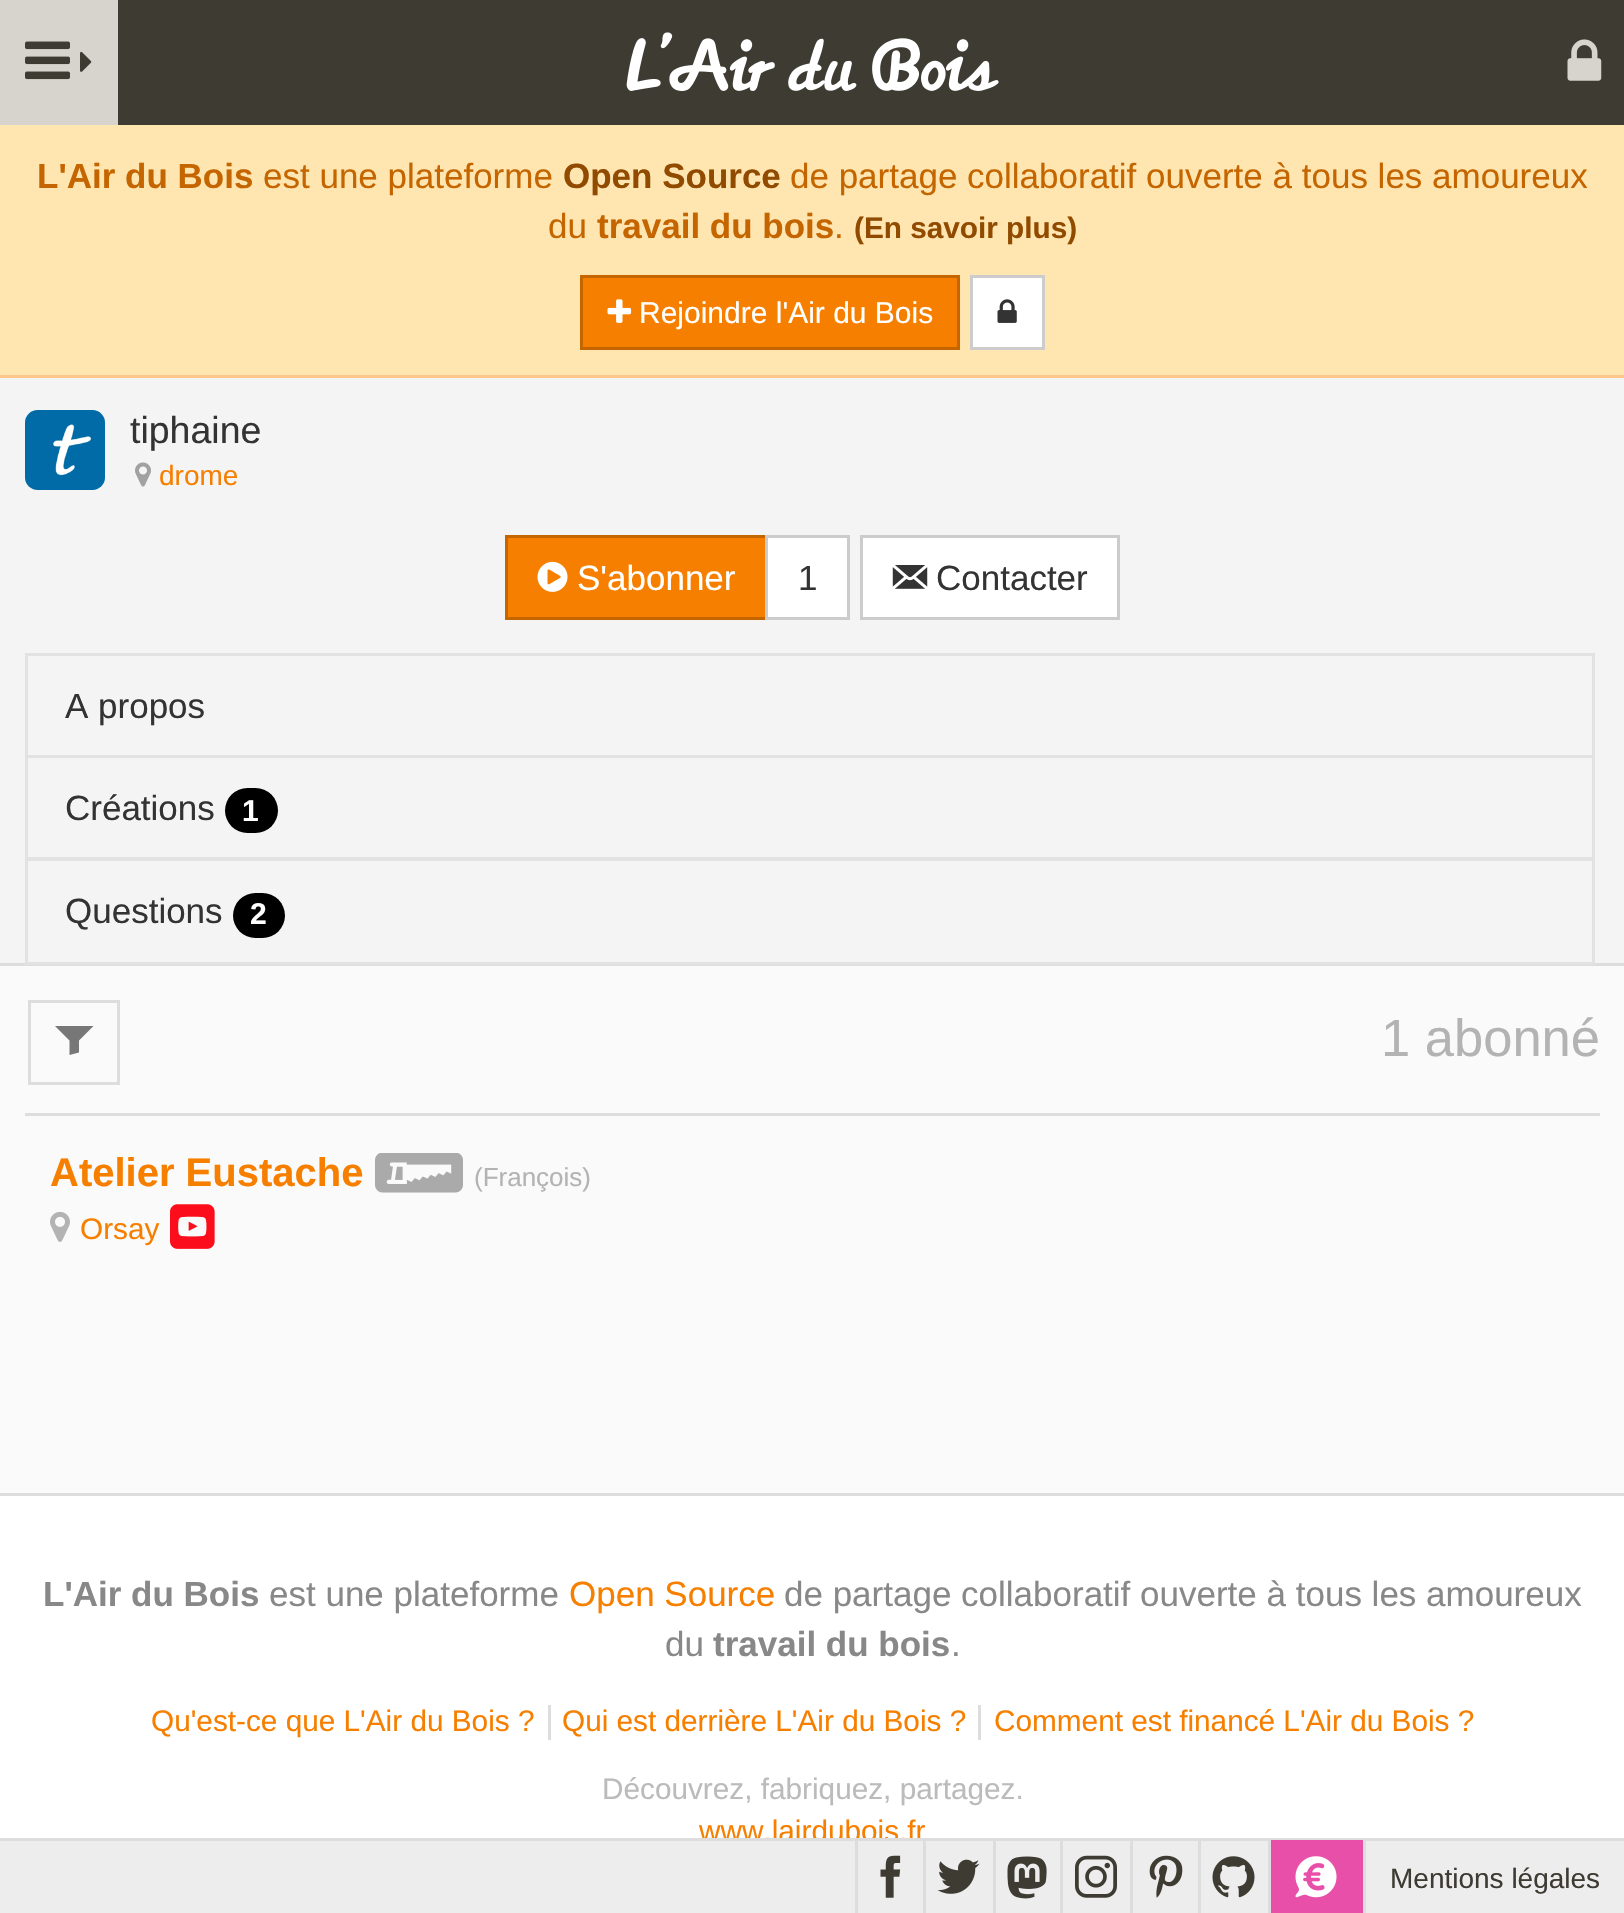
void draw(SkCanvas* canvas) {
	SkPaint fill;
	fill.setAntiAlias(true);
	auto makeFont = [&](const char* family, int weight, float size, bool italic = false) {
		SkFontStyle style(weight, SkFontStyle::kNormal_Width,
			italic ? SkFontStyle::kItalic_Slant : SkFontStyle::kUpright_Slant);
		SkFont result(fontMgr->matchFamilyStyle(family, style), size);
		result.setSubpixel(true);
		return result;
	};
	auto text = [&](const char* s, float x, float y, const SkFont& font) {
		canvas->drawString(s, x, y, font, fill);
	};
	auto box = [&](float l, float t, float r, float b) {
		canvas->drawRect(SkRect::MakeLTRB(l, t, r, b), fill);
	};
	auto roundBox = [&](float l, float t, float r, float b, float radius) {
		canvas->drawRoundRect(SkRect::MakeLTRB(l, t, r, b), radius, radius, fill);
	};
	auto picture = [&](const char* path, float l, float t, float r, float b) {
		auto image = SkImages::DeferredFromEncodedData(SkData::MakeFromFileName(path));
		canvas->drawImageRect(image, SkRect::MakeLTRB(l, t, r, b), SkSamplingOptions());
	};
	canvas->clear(0xFFFAFAFA);
	fill.setColor(0xFF3E3B33);
	box(118, 0, 1624, 125);
	fill.setColor(0xFFD6D4CD);
	box(0, 0, 118, 125);
	picture("image0.png", 25, 41, 70, 80);
	picture("image1.png", 80, 51, 92, 72);
	picture("image2.png", 626, 32, 999, 91);
	picture("image3.png", 1567, 39, 1602, 81);
	fill.setColor(0xFFFFE5AF);
	box(0, 125, 1624, 375);
	fill.setColor(0xFFFFC68B);
	box(0, 375, 1624, 378);
	fill.setColor(0xFFF77F00);
	canvas->drawRect(SkRect::MakeLTRB(581.5f, 276.5f, 958.5f, 348.5f), fill);
	fill.setStyle(SkPaint::kStroke_Style);
	fill.setStrokeWidth(3);
	fill.setColor(0xFFC46500);
	canvas->drawRect(SkRect::MakeLTRB(581.5f, 276.5f, 958.5f, 348.5f), fill);
	picture("image4.png", 607, 299, 632, 323);
	fill.setStyle(SkPaint::kFill_Style);
	fill.setColor(0xFFFFFFFF);
	canvas->drawRect(SkRect::MakeLTRB(971.5f, 276.5f, 1043.5f, 348.5f), fill);
	fill.setStyle(SkPaint::kStroke_Style);
	fill.setColor(0xFFCCCCCC);
	canvas->drawRect(SkRect::MakeLTRB(971.5f, 276.5f, 1043.5f, 348.5f), fill);
	picture("image5.png", 997, 299, 1017, 323);
	fill.setStyle(SkPaint::kFill_Style);
	fill.setColor(0xFFF4F4F4);
	box(0, 378, 1624, 963);
	fill.setColor(0xFFDDDDDD);
	box(0, 963, 1624, 966);
	picture("image6.png", 25, 410, 105, 490);
	picture("image7.png", 135, 462, 151, 487);
	fill.setColor(0xFFF77F00);
	canvas->drawRect(SkRect::MakeLTRB(506.5f, 536.5f, 766.5f, 618.5f), fill);
	fill.setStyle(SkPaint::kStroke_Style);
	fill.setColor(0xFFC46500);
	canvas->drawRect(SkRect::MakeLTRB(506.5f, 536.5f, 766.5f, 618.5f), fill);
	picture("image8.png", 537, 561, 568, 592);
	fill.setStyle(SkPaint::kFill_Style);
	fill.setColor(0xFFFFFFFF);
	canvas->drawRect(SkRect::MakeLTRB(766.5f, 536.5f, 848.5f, 618.5f), fill);
	fill.setStyle(SkPaint::kStroke_Style);
	fill.setColor(0xFFCCCCCC);
	canvas->drawRect(SkRect::MakeLTRB(766.5f, 536.5f, 848.5f, 618.5f), fill);
	fill.setStyle(SkPaint::kFill_Style);
	fill.setColor(0xFFFFFFFF);
	canvas->drawRect(SkRect::MakeLTRB(861.5f, 536.5f, 1118.5f, 618.5f), fill);
	fill.setStyle(SkPaint::kStroke_Style);
	fill.setColor(0xFFCCCCCC);
	canvas->drawRect(SkRect::MakeLTRB(861.5f, 536.5f, 1118.5f, 618.5f), fill);
	picture("image9.png", 892, 565, 928, 589);
	fill.setColor(0xFFE2E2E2);
	canvas->drawRect(SkRect::MakeLTRB(26.5f, 654.5f, 1593.5f, 756.5f), fill);
	canvas->drawRect(SkRect::MakeLTRB(26.5f, 756.5f, 1593.5f, 858.5f), fill);
	fill.setStyle(SkPaint::kFill_Style);
	fill.setColor(0xFF000000);
	roundBox(225, 788, 278, 833, 22.5f);
	fill.setStyle(SkPaint::kStroke_Style);
	fill.setColor(0xFFE2E2E2);
	canvas->drawRect(SkRect::MakeLTRB(26.5f, 859.5f, 1593.5f, 963.5f), fill);
	fill.setStyle(SkPaint::kFill_Style);
	fill.setColor(0xFF000000);
	roundBox(233, 893, 285, 938, 22.5f);
	fill.setColor(0xFFDDDDDD);
	box(25, 1113, 1600, 1116);
	fill.setStyle(SkPaint::kStroke_Style);
	canvas->drawRect(SkRect::MakeLTRB(29.5f, 1001.5f, 118.5f, 1083.5f), fill);
	fill.setStyle(SkPaint::kFill_Style);
	fill.setColor(0xFF777777);
	canvas->drawPath(SkPathBuilder().moveTo(55, 1026).lineTo(69.5f, 1040.5f).lineTo(69.5f, 1055).lineTo(79, 1052.5f).lineTo(79, 1040.5f).lineTo(93.5f, 1026).close().detach(), fill);
	picture("image10.png", 375, 1153, 463, 1193);
	picture("image11.png", 50, 1211, 70, 1242);
	picture("image12.png", 170, 1204, 215, 1249);
	fill.setColor(0xFFFFFFFF);
	box(0, 1496, 1624, 1838);
	fill.setColor(0xFFDDDDDD);
	box(0, 1493, 1624, 1496);
	box(548, 1705, 551, 1740);
	box(978, 1705, 981, 1740);
	auto font1 = makeFont("Liberation Sans", 700, 35);
	fill.setColor(0xFFC46500);
	text("L'Air du Bois", 37, 188, font1);
	auto font2 = makeFont("Liberation Sans", 400, 35);
	text("est une plateforme", 263, 188, font2);
	fill.setColor(0xFF914B00);
	text("Open Source", 563, 188, font1);
	fill.setColor(0xFFC46500);
	text("de partage collaboratif ouverte à tous les amoureux", 790, 188, font2);
	text("du", 548, 238, font2);
	text("travail du bois", 597, 238, font1);
	text(".", 834, 238, font2);
	auto font3 = makeFont("Liberation Sans", 700, 29.75f);
	fill.setColor(0xFF914B00);
	text("(En savoir plus)", 854, 238, font3);
	auto font4 = makeFont("Liberation Sans", 400, 30);
	fill.setColor(0xFFFFFFFF);
	text("Rejoindre l'Air du Bois", 639, 323, font4);
	auto font5 = makeFont("Liberation Sans", 400, 37.5f);
	fill.setColor(0xFF333333);
	text("tiphaine", 130, 443, font5);
	auto font6 = makeFont("Liberation Sans", 400, 28);
	fill.setColor(0xFFF77F00);
	text("drome", 159, 485, font6);
	fill.setColor(0xFFFFFFFF);
	text("S'abonner", 577, 590, font2);
	fill.setColor(0xFF333333);
	text("1", 798, 590, font2);
	text("Contacter", 936, 590, font2);
	text("A propos", 65, 718, font2);
	text("Créations", 65, 820, font2);
	auto font7 = makeFont("Liberation Sans", 700, 30);
	fill.setColor(0xFFFFFFFF);
	text("1", 242, 821, font7);
	fill.setColor(0xFF333333);
	text("Questions", 65, 923, font2);
	fill.setColor(0xFFFFFFFF);
	text("2", 250, 924, font7);
	auto font8 = makeFont("Liberation Sans", 400, 52.5f);
	fill.setColor(0xFFB3B3B3);
	text("1 abonné", 1381, 1056, font8);
	auto font9 = makeFont("Liberation Sans", 700, 40);
	fill.setColor(0xFFF77F00);
	text("Atelier Eustache", 50, 1186, font9);
	auto font10 = makeFont("Liberation Sans", 400, 26);
	fill.setColor(0xFFB3B3B3);
	text("(François)", 474, 1186, font10);
	auto font11 = makeFont("Liberation Sans", 400, 29.75f);
	fill.setColor(0xFFF77F00);
	text("Orsay", 80, 1239, font11);
	fill.setColor(0xFF888888);
	text("L'Air du Bois", 43, 1606, font1);
	text("est une plateforme", 269, 1606, font2);
	fill.setColor(0xFFF77F00);
	text("Open Source", 569, 1606, font2);
	fill.setColor(0xFF888888);
	text("de partage collaboratif ouverte à tous les amoureux", 784, 1606, font2);
	text("du", 665, 1656, font2);
	text("travail du bois", 713, 1656, font1);
	text(".", 951, 1656, font2);
	fill.setColor(0xFFF77F00);
	text("Qu'est-ce que L'Air du Bois ?", 151, 1731, font11);
	text("Qui est derrière L'Air du Bois ?", 562, 1731, font11);
	text("Comment est financé L'Air du Bois ?", 994, 1731, font11);
	fill.setColor(0xFFBBBBBB);
	text("Découvrez, fabriquez, partagez.", 602, 1799, font11);
	fill.setColor(0xFFF77F00);
	text("www.lairdubois.fr", 699, 1841, font11);
	fill.setColor(0xFFEDEDED);
	box(0, 1841, 1624, 1913);
	fill.setColor(0xFFDDDDDD);
	box(0, 1838, 1624, 1841);
	box(855, 1840, 858, 1913);
	picture("image13.png", 880, 1855, 901, 1898);
	box(923, 1840, 926, 1913);
	picture("image14.png", 937, 1859, 980, 1894);
	box(993, 1840, 996, 1913);
	picture("image15.png", 1007, 1856, 1047, 1899);
	box(1060, 1840, 1063, 1913);
	picture("image16.png", 1075, 1855, 1117, 1898);
	box(1130, 1840, 1133, 1913);
	picture("image17.png", 1149, 1855, 1183, 1898);
	box(1198, 1840, 1201, 1913);
	picture("image18.png", 1212, 1856, 1255, 1898);
	fill.setColor(0xFFE84FA9);
	box(1271, 1840, 1363, 1913);
	fill.setColor(0xFFDDDDDD);
	box(1268, 1840, 1271, 1913);
	picture("image19.png", 1295, 1856, 1337, 1898);
	box(1363, 1840, 1366, 1913);
	fill.setColor(0xFF3E3B33);
	text("Mentions légales", 1390, 1888, font6);
}
